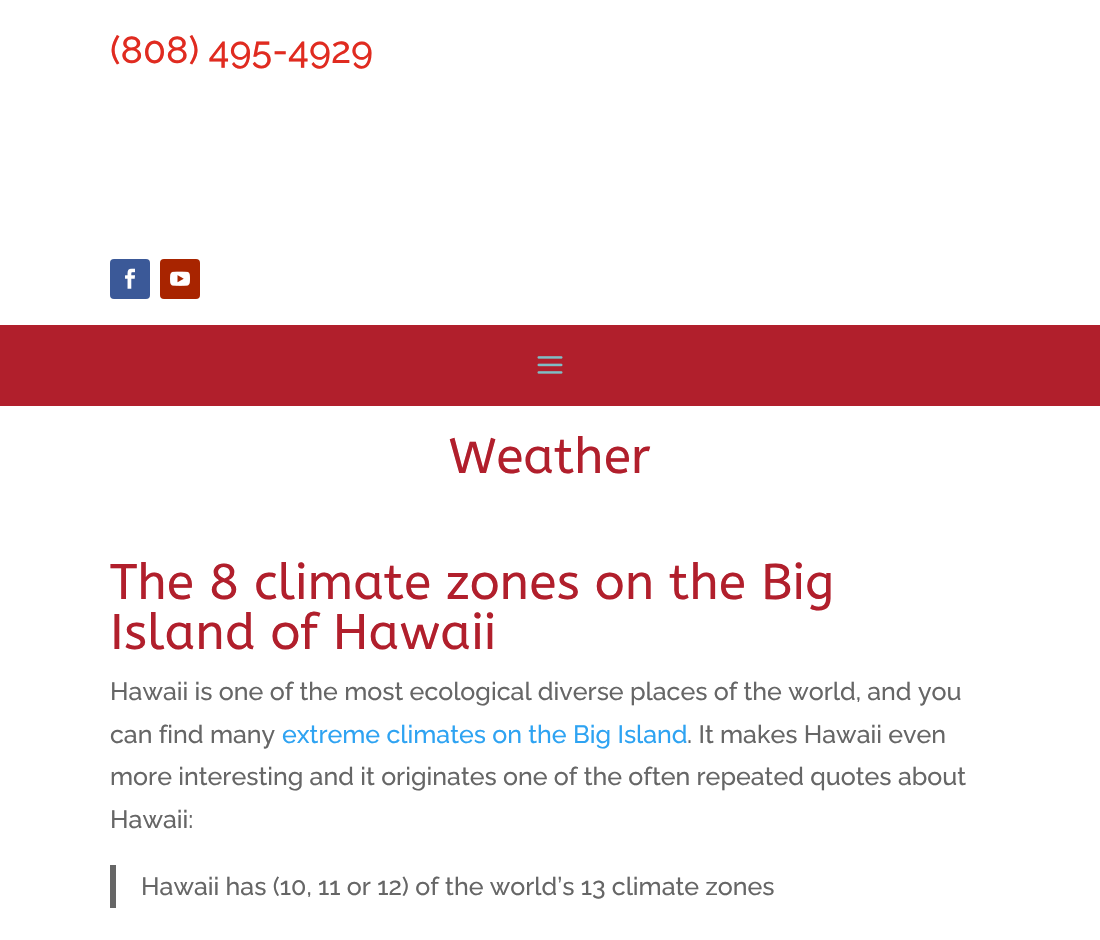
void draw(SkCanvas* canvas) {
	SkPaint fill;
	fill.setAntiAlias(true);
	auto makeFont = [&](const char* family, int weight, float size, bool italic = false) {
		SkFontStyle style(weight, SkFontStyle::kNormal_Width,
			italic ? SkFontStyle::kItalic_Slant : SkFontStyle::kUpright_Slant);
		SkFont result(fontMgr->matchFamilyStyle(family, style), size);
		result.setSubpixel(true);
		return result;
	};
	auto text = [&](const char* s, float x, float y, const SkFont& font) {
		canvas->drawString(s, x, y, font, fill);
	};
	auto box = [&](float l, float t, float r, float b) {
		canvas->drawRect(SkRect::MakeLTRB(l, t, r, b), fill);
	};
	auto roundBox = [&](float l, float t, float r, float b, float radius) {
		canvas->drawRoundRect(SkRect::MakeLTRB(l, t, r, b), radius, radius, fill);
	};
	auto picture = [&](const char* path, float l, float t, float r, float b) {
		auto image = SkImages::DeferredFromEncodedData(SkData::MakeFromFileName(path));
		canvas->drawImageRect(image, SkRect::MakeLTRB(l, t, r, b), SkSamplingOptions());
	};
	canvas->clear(0xFFFFFFFF);
	fill.setColor(0xFF3B5998);
	roundBox(110, 259, 150, 299, 4);
	picture("image0.png", 125, 268, 135, 289);
	fill.setColor(0xFFA82400);
	roundBox(160, 259, 200, 299, 4);
	picture("image1.png", 170, 271, 190, 286);
	fill.setColor(0xFFB11F2C);
	box(0, 325, 1100, 406);
	picture("image2.png", 537, 356, 563, 374);
	fill.setColor(0xFF666666);
	box(110, 865, 116, 908);
	auto font1 = makeFont("Raleway", 500, 37.5f);
	fill.setColor(0xFFE02B20);
	text("(808) 495-4929", 110, 63, font1);
	auto font2 = makeFont("ABeeZee", 400, 50);
	fill.setColor(0xFFB11F2C);
	text("Weather", 449, 473, font2);
	text("The 8 climate zones on the Big", 110, 599, font2);
	text("Island of Hawaii", 110, 649, font2);
	auto font3 = makeFont("Raleway", 500, 25);
	fill.setColor(0xFF666666);
	text("Hawaii is one of the most ecological diverse places of the world, and you", 110, 700, font3);
	text("can find many", 110, 743, font3);
	fill.setColor(0xFF2EA3F2);
	text("extreme climates on the Big Island", 282, 743, font3);
	fill.setColor(0xFF666666);
	text(". It makes Hawaii even", 687, 743, font3);
	text("more interesting and it originates one of the often repeated quotes about", 110, 785, font3);
	text("Hawaii:", 110, 828, font3);
	text("Hawaii has (10, 11 or 12) of the world’s 13 climate zones", 141, 895, font3);
}
